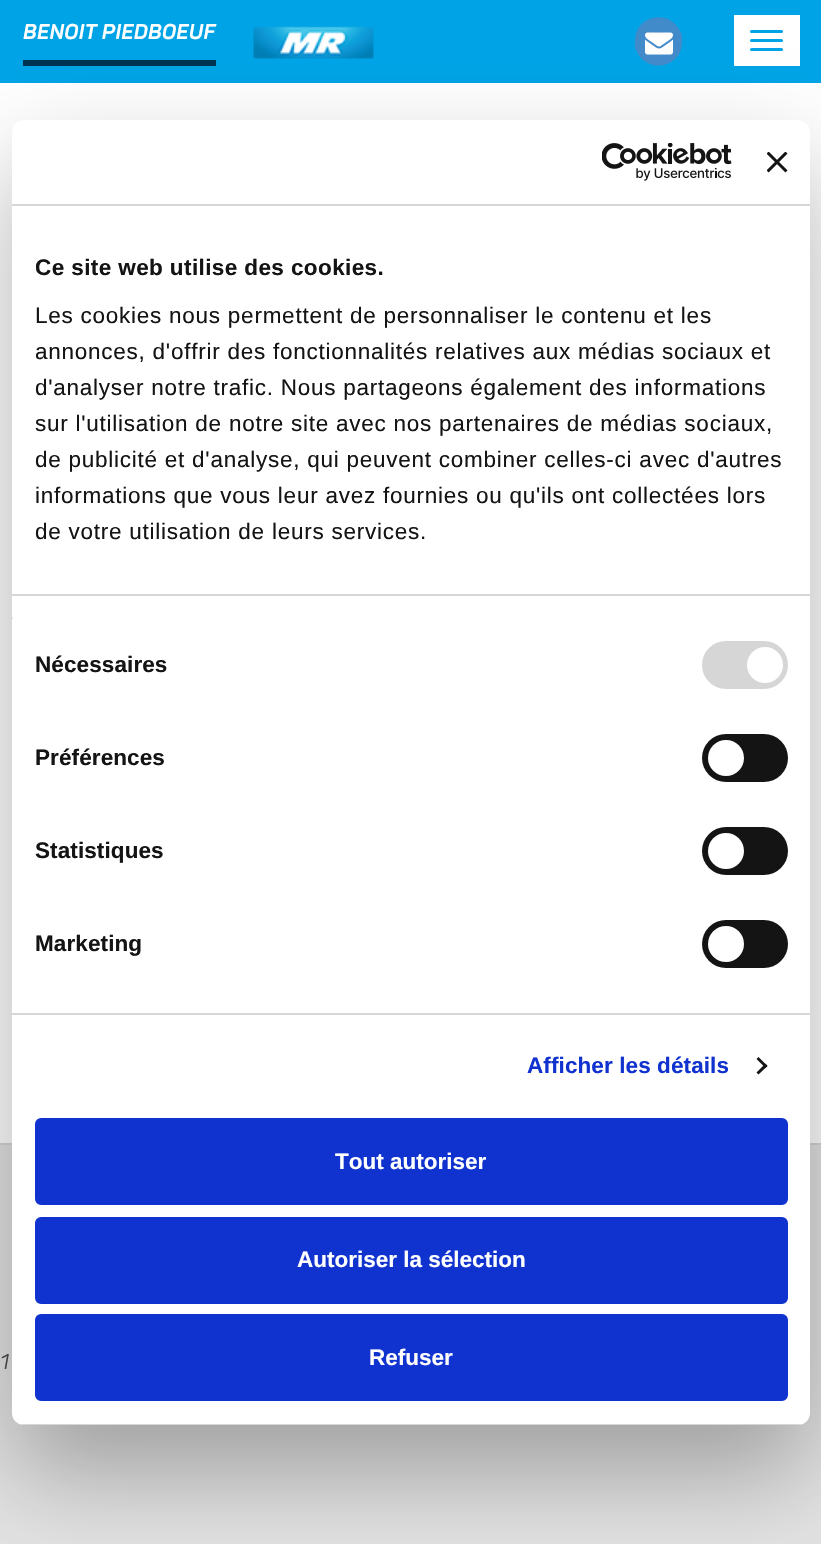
void draw(SkCanvas* canvas) {
	SkPaint fill;
	fill.setAntiAlias(true);
	auto makeFont = [&](const char* family, int weight, float size, bool italic = false) {
		SkFontStyle style(weight, SkFontStyle::kNormal_Width,
			italic ? SkFontStyle::kItalic_Slant : SkFontStyle::kUpright_Slant);
		SkFont result(fontMgr->matchFamilyStyle(family, style), size);
		result.setSubpixel(true);
		return result;
	};
	auto text = [&](const char* s, float x, float y, const SkFont& font) {
		canvas->drawString(s, x, y, font, fill);
	};
	auto spacedText = [&](const char* s, float x, float y, const SkFont& font, const SkPaint& ink, float letter, float word) {
		std::vector<SkGlyphID> glyphs(font.countText(s, strlen(s), SkTextEncoding::kUTF8));
		std::vector<float> xs(glyphs.size());
		font.textToGlyphs(s, strlen(s), SkTextEncoding::kUTF8, glyphs);
		font.getXPos(glyphs, xs, x);
		float extra = 0;
		for (size_t i = 0; i < glyphs.size(); i++) {
			xs[i] += extra;
			extra += letter + word * (glyphs[i] == font.unicharToGlyph(' '));
		}
		canvas->drawTextBlob(SkTextBlob::MakeFromPosHGlyphs(glyphs, xs, y, font), 0, 0, ink);
	};
	auto box = [&](float l, float t, float r, float b) {
		canvas->drawRect(SkRect::MakeLTRB(l, t, r, b), fill);
	};
	auto roundBox = [&](float l, float t, float r, float b, float radius) {
		canvas->drawRoundRect(SkRect::MakeLTRB(l, t, r, b), radius, radius, fill);
	};
	auto picture = [&](const char* path, float l, float t, float r, float b) {
		auto image = SkImages::DeferredFromEncodedData(SkData::MakeFromFileName(path));
		canvas->drawImageRect(image, SkRect::MakeLTRB(l, t, r, b), SkSamplingOptions());
	};
	canvas->clear(0xFFE3E3E3);
	fill.setColor(0xFF00A4E6);
	box(0, 0, 821, 83);
	fill.setColor(0xFF003254);
	box(23, 60, 216, 66);
	picture("image0.png", 253, 26, 374, 59);
	fill.setColor(0xFF428BCA);
	canvas->drawPath(SkPathBuilder().moveTo(679, 29).cubicTo(682, 34, 683, 38, 682, 43).cubicTo(681, 67, 650, 74, 638, 54).cubicTo(635, 49, 634, 45, 635, 40).cubicTo(636, 16, 667, 9, 679, 29).close().detach(), fill);
	picture("image1.png", 645, 32, 673, 55);
	fill.setColor(0xFFFFFFFF);
	box(734, 15, 800, 66);
	fill.setColor(0xFF00A4E6);
	roundBox(750, 30, 783, 33, 1.5f);
	roundBox(750, 39, 783, 42, 1.5f);
	roundBox(750, 48, 783, 51, 1.5f);
	fill.setColor(0xFFFFFFFF);
	box(0, 83, 821, 1143);
	fill.setColor(0xFFD5D5D5);
	box(0, 1143, 821, 1145);
	fill.setColor(0x4D000000);
	fill.setMaskFilter(SkMaskFilter::MakeBlur(kNormal_SkBlurStyle, 51));
	canvas->drawRoundRect(SkRect::MakeLTRB(12, 168, 810, 1473), 12, 12, fill);
	fill.setMaskFilter(nullptr);
	fill.setColor(0xFFFFFFFF);
	roundBox(12, 120, 810, 1425, 12);
	fill.setColor(0xFFD6D6D6);
	box(12, 204, 810, 206);
	picture("image2.png", 602, 143, 732, 181);
	picture("image3.png", 767, 152, 788, 173);
	box(12, 594, 810, 596);
	box(12, 1013, 810, 1015);
	fill.setColor(0xFFE5E5E5);
	box(12, 617, 13, 619);
	fill.setColor(0xFFD6D6D6);
	roundBox(702, 641, 788, 689, 24);
	fill.setColor(0xFFFFFFFF);
	canvas->drawCircle(765, 665, 18, fill);
	fill.setColor(0xFF141414);
	roundBox(702, 734, 788, 782, 24);
	fill.setColor(0xFFFFFFFF);
	canvas->drawCircle(726, 758, 18, fill);
	fill.setColor(0xFF141414);
	roundBox(702, 827, 788, 875, 24);
	fill.setColor(0xFFFFFFFF);
	canvas->drawCircle(726, 851, 18, fill);
	fill.setColor(0xFF141414);
	roundBox(702, 920, 788, 968, 24);
	fill.setColor(0xFFFFFFFF);
	canvas->drawCircle(726, 944, 18, fill);
	fill.setColor(0xFF141414);
	canvas->drawPath(SkPathBuilder().moveTo(758.5f, 1057).lineTo(767.5f, 1066).lineTo(765.5f, 1068).lineTo(756.5f, 1059).close().detach(), fill);
	canvas->drawPath(SkPathBuilder().moveTo(765.5f, 1063.5f).lineTo(767.5f, 1066).lineTo(758.5f, 1074.5f).lineTo(756.5f, 1072.5f).close().detach(), fill);
	canvas->save();
	canvas->clipPath(SkPathBuilder().moveTo(24, 120).lineTo(798, 120).cubicTo(804.5f, 120, 810, 125.5f, 810, 132).lineTo(810, 1413).cubicTo(810, 1419.5f, 804.5f, 1425, 798, 1425).lineTo(24, 1425).cubicTo(17.5f, 1425, 12, 1419.5f, 12, 1413).lineTo(12, 132).cubicTo(12, 125.5f, 17.5f, 120, 24, 120).close().detach(), true);
	fill.setColor(0xFFD6D6D6);
	box(12, 1424, 810, 1425);
	canvas->restore();
	fill.setColor(0xFF1032CF);
	canvas->drawRoundRect(SkRect::MakeLTRB(36.5f, 1119.5f, 786.5f, 1203.5f), 4.5f, 4.5f, fill);
	fill.setStyle(SkPaint::kStroke_Style);
	fill.setStrokeWidth(3);
	canvas->drawRoundRect(SkRect::MakeLTRB(36.5f, 1119.5f, 786.5f, 1203.5f), 4.5f, 4.5f, fill);
	fill.setStyle(SkPaint::kFill_Style);
	canvas->drawRoundRect(SkRect::MakeLTRB(36.5f, 1218.5f, 786.5f, 1302.5f), 4.5f, 4.5f, fill);
	fill.setStyle(SkPaint::kStroke_Style);
	canvas->drawRoundRect(SkRect::MakeLTRB(36.5f, 1218.5f, 786.5f, 1302.5f), 4.5f, 4.5f, fill);
	fill.setStyle(SkPaint::kFill_Style);
	canvas->drawRoundRect(SkRect::MakeLTRB(36.5f, 1315.5f, 786.5f, 1399.5f), 4.5f, 4.5f, fill);
	fill.setStyle(SkPaint::kStroke_Style);
	canvas->drawRoundRect(SkRect::MakeLTRB(36.5f, 1315.5f, 786.5f, 1399.5f), 4.5f, 4.5f, fill);
	auto font1 = makeFont("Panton", 700, 21);
	fill.setStyle(SkPaint::kFill_Style);
	fill.setColor(0xFFFFFFFF);
	text("BENOIT PIEDBOEUF", 23, 39, font1);
	auto font2 = makeFont("Panton", 400, 21);
	fill.setColor(0xFF414141);
	text("1", 0, 1369, font2);
	auto font3 = makeFont("Liberation Sans", 700, 22.5f);
	fill.setColor(0xFF141414);
	spacedText("Ce site web utilise des cookies.", 35, 275, font3, fill, 0.4f, 0);
	auto font4 = makeFont("Liberation Sans", 400, 22.5f);
	spacedText("Les cookies nous permettent de personnaliser le contenu et les", 35, 323, font4, fill, 0.75f, 0);
	spacedText("annonces, d'offrir des fonctionnalités relatives aux médias sociaux et", 35, 359, font4, fill, 0.75f, 0);
	spacedText("d'analyser notre trafic. Nous partageons également des informations", 35, 395, font4, fill, 0.75f, 0);
	spacedText("sur l'utilisation de notre site avec nos partenaires de médias sociaux,", 35, 431, font4, fill, 0.75f, 0);
	spacedText("de publicité et d'analyse, qui peuvent combiner celles-ci avec d'autres", 35, 467, font4, fill, 0.75f, 0);
	spacedText("informations que vous leur avez fournies ou qu'ils ont collectées lors", 35, 503, font4, fill, 0.75f, 0);
	spacedText("de votre utilisation de leurs services.", 35, 539, font4, fill, 0.75f, 0);
	spacedText("Nécessaires", 35, 672, font3, fill, 0.1f, 0);
	spacedText("Préférences", 35, 765, font3, fill, 0.1f, 0);
	spacedText("Statistiques", 35, 858, font3, fill, 0.1f, 0);
	spacedText("Marketing", 35, 951, font3, fill, 0.1f, 0);
	fill.setColor(0xFF1032CF);
	spacedText("Afficher les détails", 527, 1073, font3, fill, 0.1f, 0);
	fill.setColor(0xFFFFFFFF);
	text("Tout autoriser", 335, 1169, font3);
	text("Autoriser la sélection", 297, 1267, font3);
	text("Refuser", 369, 1365, font3);
}
